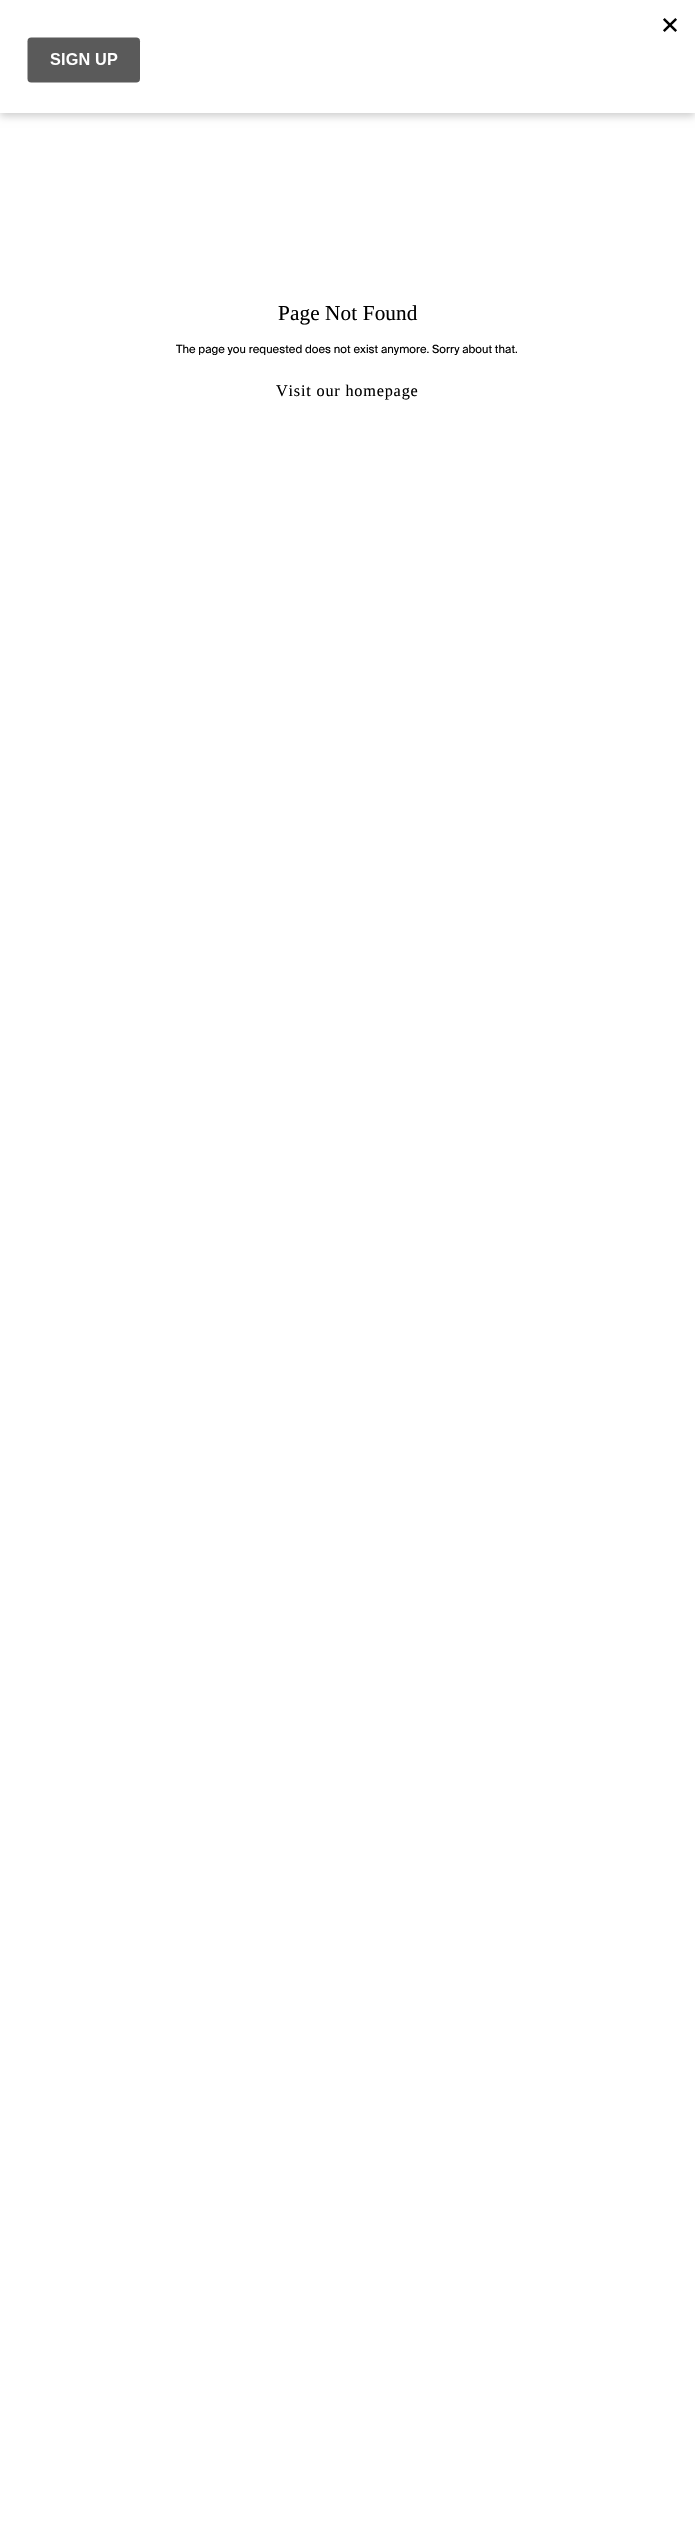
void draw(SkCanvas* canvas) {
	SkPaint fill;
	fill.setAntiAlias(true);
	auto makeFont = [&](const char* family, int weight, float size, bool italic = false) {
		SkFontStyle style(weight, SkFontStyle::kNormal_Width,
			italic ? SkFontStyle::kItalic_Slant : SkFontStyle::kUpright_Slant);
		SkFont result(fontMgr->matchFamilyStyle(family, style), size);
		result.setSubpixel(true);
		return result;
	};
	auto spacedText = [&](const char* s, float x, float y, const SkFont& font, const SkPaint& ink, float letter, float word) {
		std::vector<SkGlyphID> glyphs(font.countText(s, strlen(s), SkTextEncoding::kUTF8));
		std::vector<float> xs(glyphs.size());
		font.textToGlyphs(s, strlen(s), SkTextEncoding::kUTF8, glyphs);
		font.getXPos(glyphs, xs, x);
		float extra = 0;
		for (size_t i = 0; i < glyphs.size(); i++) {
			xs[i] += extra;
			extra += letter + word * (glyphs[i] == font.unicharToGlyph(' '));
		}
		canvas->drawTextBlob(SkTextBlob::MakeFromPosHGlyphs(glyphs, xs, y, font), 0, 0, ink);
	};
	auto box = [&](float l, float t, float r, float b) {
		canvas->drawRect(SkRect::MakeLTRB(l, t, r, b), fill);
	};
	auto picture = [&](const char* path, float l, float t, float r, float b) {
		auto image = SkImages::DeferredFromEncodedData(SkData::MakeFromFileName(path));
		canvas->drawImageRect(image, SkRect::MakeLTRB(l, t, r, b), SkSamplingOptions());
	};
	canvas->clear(0xFFFFFFFF);
	fill.setColor(0x33000000);
	fill.setMaskFilter(SkMaskFilter::MakeBlur(kNormal_SkBlurStyle, 4));
	canvas->drawRect(SkRect::MakeLTRB(0, 4, 695, 116), fill);
	fill.setMaskFilter(nullptr);
	fill.setColor(0xFFFFFFFF);
	box(0, 0, 695, 113);
	picture("image0.png", 27, 18, 677, 83);
	auto font1 = makeFont("Liberation Serif", 400, 21.25f);
	fill.setColor(0xFF000000);
	spacedText("Page Not Found", 278, 320, font1, fill, 0.1f, 0);
	auto font2 = makeFont("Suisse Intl", 400, 11.25f);
	spacedText("The page you requested does not exist anymore. Sorry about that.", 176, 353, font2, fill, 0.05f, 0);
	auto font3 = makeFont("Liberation Serif", 400, 16.25f);
	spacedText("Visit our homepage", 276, 396, font3, fill, 0.8f, 0);
}
